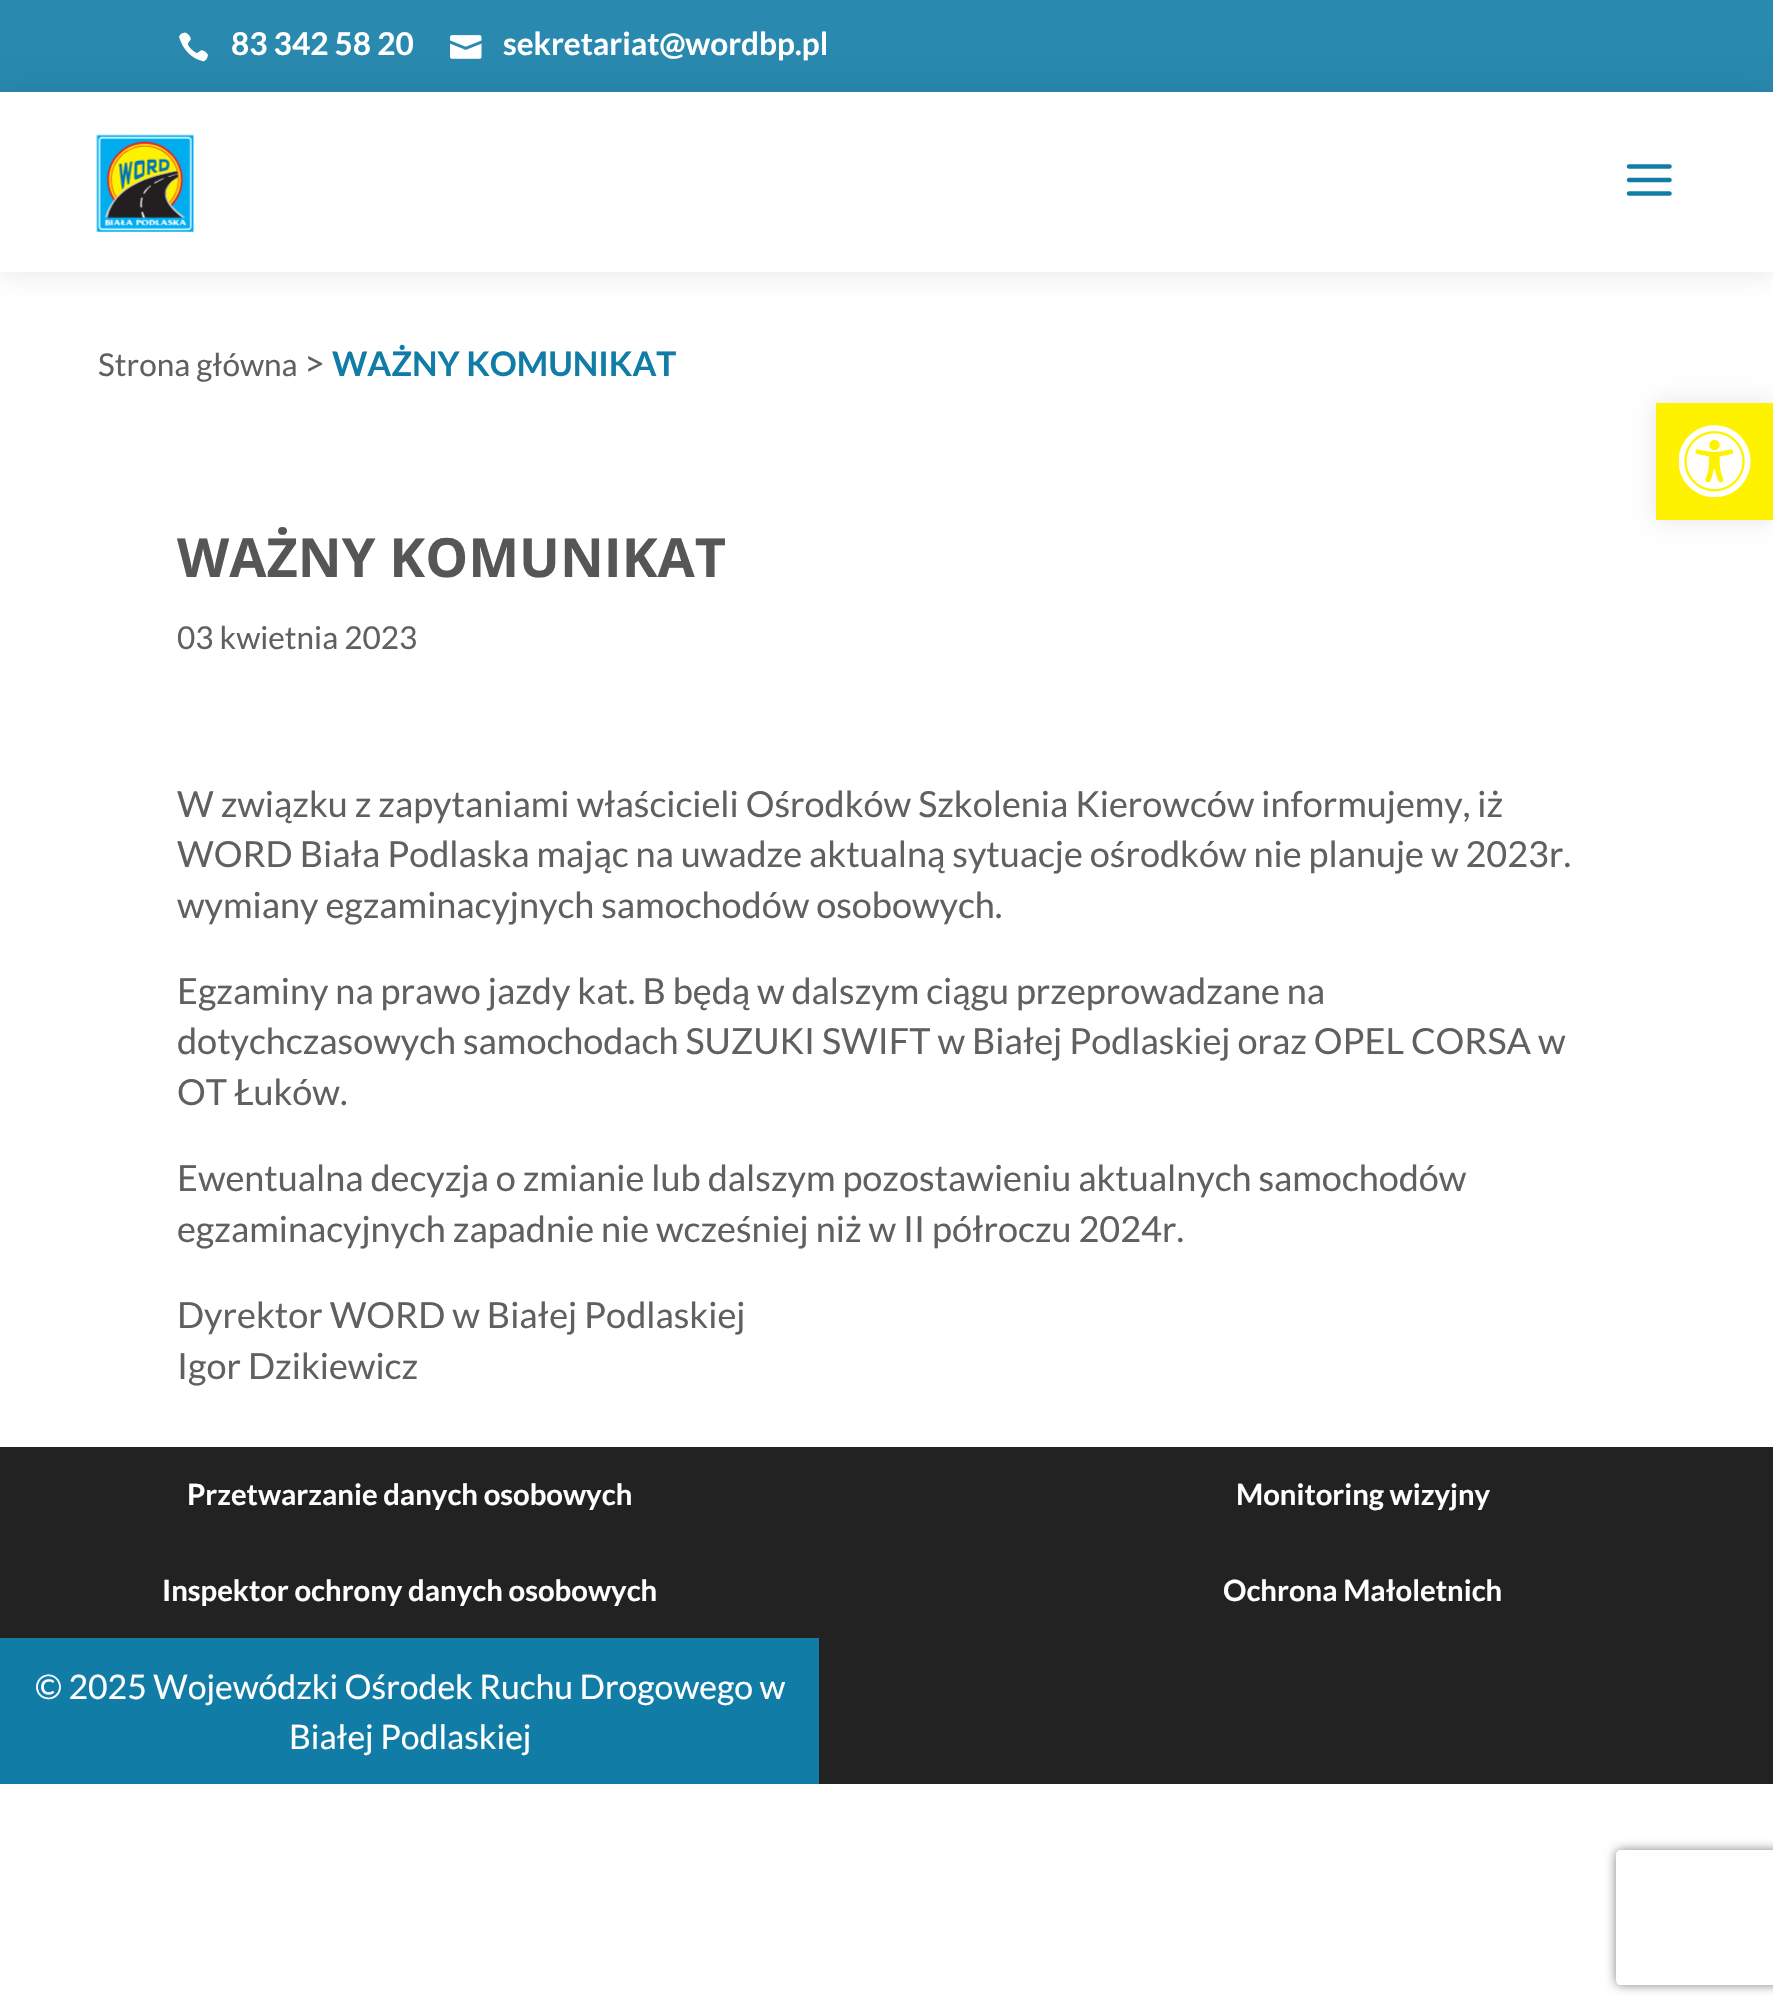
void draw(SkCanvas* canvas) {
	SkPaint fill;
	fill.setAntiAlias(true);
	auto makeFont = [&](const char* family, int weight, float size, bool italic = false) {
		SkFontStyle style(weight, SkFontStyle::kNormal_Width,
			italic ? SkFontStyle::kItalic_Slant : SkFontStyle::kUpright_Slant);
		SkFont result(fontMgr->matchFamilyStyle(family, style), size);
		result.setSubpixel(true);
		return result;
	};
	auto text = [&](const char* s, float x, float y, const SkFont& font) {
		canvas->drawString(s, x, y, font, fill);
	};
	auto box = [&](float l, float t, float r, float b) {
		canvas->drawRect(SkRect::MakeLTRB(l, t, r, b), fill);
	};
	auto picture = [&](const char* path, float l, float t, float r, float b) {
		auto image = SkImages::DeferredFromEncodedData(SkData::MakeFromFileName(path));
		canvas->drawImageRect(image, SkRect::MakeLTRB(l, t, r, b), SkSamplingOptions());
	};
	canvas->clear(0xFFFFFFFF);
	fill.setColor(0xFF2989AE);
	box(0, 0, 1773, 92);
	picture("image0.png", 179, 32, 208, 62);
	picture("image1.png", 450, 35, 482, 59);
	fill.setColor(0x1A000000);
	fill.setMaskFilter(SkMaskFilter::MakeBlur(kNormal_SkBlurStyle, 13.5f));
	canvas->drawRect(SkRect::MakeLTRB(0, 92, 1773, 272), fill);
	fill.setMaskFilter(nullptr);
	fill.setColor(0xFFFFFFFF);
	box(0, 92, 1773, 272);
	picture("image2.png", 96, 134, 194, 232);
	picture("image3.png", 1626, 164, 1672, 196);
	fill.setColor(0xFF222222);
	box(0, 1447, 1773, 1784);
	fill.setColor(0xFF117CA5);
	box(0, 1638, 819, 1784);
	fill.setColor(0x1A000000);
	fill.setMaskFilter(SkMaskFilter::MakeBlur(kNormal_SkBlurStyle, 11));
	canvas->drawRect(SkRect::MakeLTRB(1656, 403, 1773, 520), fill);
	fill.setMaskFilter(nullptr);
	fill.setColor(0xFFFFF200);
	box(1656, 403, 1773, 520);
	picture("image4.png", 1679, 425, 1751, 497);
	canvas->save();
	canvas->clipPath(SkPathBuilder(SkPathFillType::kEvenOdd).moveTo(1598, 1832).lineTo(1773, 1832).lineTo(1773, 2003).lineTo(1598, 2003).close().moveTo(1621, 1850).lineTo(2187, 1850).cubicTo(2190, 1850, 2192, 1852, 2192, 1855).lineTo(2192, 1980).cubicTo(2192, 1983, 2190, 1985, 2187, 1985).lineTo(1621, 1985).cubicTo(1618, 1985, 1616, 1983, 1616, 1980).lineTo(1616, 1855).cubicTo(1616, 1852, 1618, 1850, 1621, 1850).close().detach(), true);
	fill.setColor(0xFF808080);
	fill.setMaskFilter(SkMaskFilter::MakeBlur(kNormal_SkBlurStyle, 5.5f));
	canvas->drawRoundRect(SkRect::MakeLTRB(1616, 1850, 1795, 1985), 5, 5, fill);
	fill.setMaskFilter(nullptr);
	canvas->restore();
	auto font1 = makeFont("Lato", 700, 31.5f);
	fill.setColor(0xFFFFFFFF);
	text("83 342 58 20", 231, 55, font1);
	text("sekretariat@wordbp.pl", 503, 55, font1);
	auto font2 = makeFont("Lato", 400, 31.5f);
	fill.setColor(0xFF606060);
	text("Strona główna", 98, 376, font2);
	auto font3 = makeFont("Lato", 400, 36);
	text(">", 304, 376, font3);
	auto font4 = makeFont("Lato", 700, 33.75f);
	fill.setColor(0xFF117CA5);
	text("WAŻNY KOMUNIKAT", 332, 376, font4);
	auto font5 = makeFont("Open Sans", 700, 54);
	fill.setColor(0xFF565656);
	text("WAŻNY KOMUNIKAT", 177, 577, font5);
	fill.setColor(0xFF606060);
	text("03 kwietnia 2023", 177, 649, font2);
	text("W związku z zapytaniami właścicieli Ośrodków Szkolenia Kierowców informujemy, iż", 177, 817, font3);
	text("WORD Biała Podlaska mając na uwadze aktualną sytuacje ośrodków nie planuje w 2023r.", 177, 867, font3);
	text("wymiany egzaminacyjnych samochodów osobowych.", 177, 918, font3);
	text("Egzaminy na prawo jazdy kat. B będą w dalszym ciągu przeprowadzane na", 177, 1004, font3);
	text("dotychczasowych samochodach SUZUKI SWIFT w Białej Podlaskiej oraz OPEL CORSA w", 177, 1054, font3);
	text("OT Łuków.", 177, 1105, font3);
	text("Ewentualna decyzja o zmianie lub dalszym pozostawieniu aktualnych samochodów", 177, 1191, font3);
	text("egzaminacyjnych zapadnie nie wcześniej niż w II półroczu 2024r.", 177, 1242, font3);
	text("Dyrektor WORD w Białej Podlaskiej", 177, 1328, font3);
	text("Igor Dzikiewicz", 177, 1379, font3);
	auto font6 = makeFont("Lato", 700, 29.25f);
	fill.setColor(0xFFFFFFFF);
	text("Przetwarzanie danych osobowych", 187, 1505, font6);
	text("Monitoring wizyjny", 1236, 1505, font6);
	text("Inspektor ochrony danych osobowych", 162, 1601, font6);
	text("Ochrona Małoletnich", 1223, 1601, font6);
	auto font7 = makeFont("Lato", 400, 33.75f);
	text("© 2025 Wojewódzki Ośrodek Ruchu Drogowego w", 35, 1699, font7);
	text("Białej Podlaskiej", 289, 1749, font7);
}
